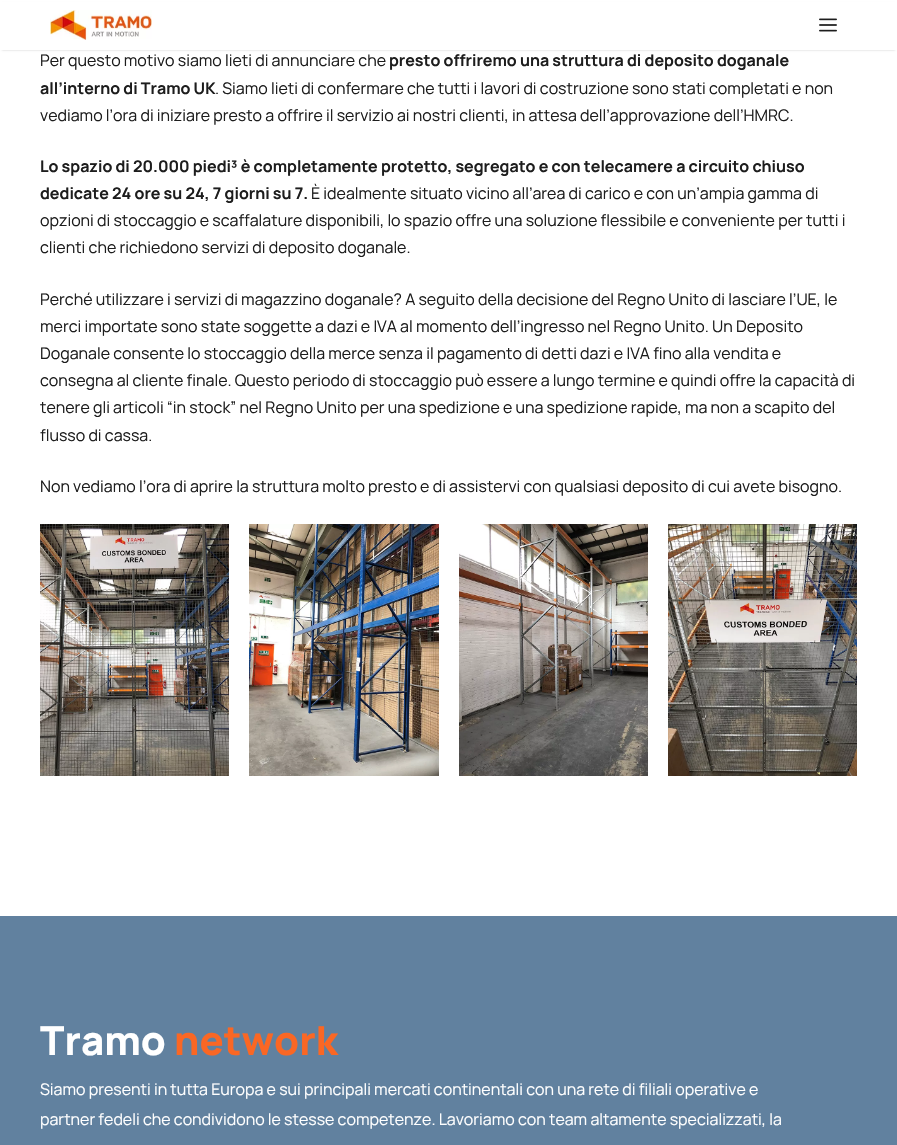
void draw(SkCanvas* canvas) {
	SkPaint fill;
	fill.setAntiAlias(true);
	auto makeFont = [&](const char* family, int weight, float size, bool italic = false) {
		SkFontStyle style(weight, SkFontStyle::kNormal_Width,
			italic ? SkFontStyle::kItalic_Slant : SkFontStyle::kUpright_Slant);
		SkFont result(fontMgr->matchFamilyStyle(family, style), size);
		result.setSubpixel(true);
		return result;
	};
	auto text = [&](const char* s, float x, float y, const SkFont& font) {
		canvas->drawString(s, x, y, font, fill);
	};
	auto box = [&](float l, float t, float r, float b) {
		canvas->drawRect(SkRect::MakeLTRB(l, t, r, b), fill);
	};
	auto picture = [&](const char* path, float l, float t, float r, float b) {
		auto image = SkImages::DeferredFromEncodedData(SkData::MakeFromFileName(path));
		canvas->drawImageRect(image, SkRect::MakeLTRB(l, t, r, b), SkSamplingOptions());
	};
	canvas->clear(0xFFFFFFFF);
	fill.setColor(0x33000000);
	fill.setMaskFilter(SkMaskFilter::MakeBlur(kNormal_SkBlurStyle, 1));
	canvas->drawRect(SkRect::MakeLTRB(2, 4, 895, 50), fill);
	fill.setMaskFilter(nullptr);
	fill.setColor(0xFFFFFFFF);
	box(0, 2, 897, 50);
	picture("image0.png", 50, 10, 152, 40);
	picture("image1.png", 819, 18, 837, 32);
	picture("image2.png", 40, 524, 229, 776);
	picture("image3.png", 249, 524, 439, 776);
	picture("image4.png", 459, 524, 648, 776);
	picture("image5.png", 668, 524, 857, 776);
	fill.setColor(0xFF61819F);
	box(0, 916, 897, 1145);
	auto font1 = makeFont("Manrope", 200, 16);
	fill.setColor(0xFF1D1D1D);
	text("Per questo motivo siamo lieti di annunciare che", 40, 66, font1);
	auto font2 = makeFont("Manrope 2", 200, 16);
	text("presto offriremo una struttura di deposito doganale", 389, 66, font2);
	text("all’interno di Tramo UK", 40, 94, font2);
	text(". Siamo lieti di confermare che tutti i lavori di costruzione sono stati completati e non", 215, 94, font1);
	text("vediamo l’ora di iniziare presto a offrire il servizio ai nostri clienti, in attesa dell’approvazione dell’HMRC.", 40, 121, font1);
	text("Lo spazio di 20.000 piedi³ è completamente protetto, segregato e con telecamere a circuito chiuso", 40, 172, font2);
	text("dedicate 24 ore su 24, 7 giorni su 7.", 40, 199, font2);
	text("È idealmente situato vicino all’area di carico e con un’ampia gamma di", 311, 199, font1);
	text("opzioni di stoccaggio e scaffalature disponibili, lo spazio offre una soluzione flessibile e conveniente per tutti i", 40, 226, font1);
	text("clienti che richiedono servizi di deposito doganale.", 40, 253, font1);
	text("Perché utilizzare i servizi di magazzino doganale? A seguito della decisione del Regno Unito di lasciare l’UE, le", 40, 305, font1);
	text("merci importate sono state soggette a dazi e IVA al momento dell’ingresso nel Regno Unito. Un Deposito", 40, 332, font1);
	text("Doganale consente lo stoccaggio della merce senza il pagamento di detti dazi e IVA fino alla vendita e", 40, 359, font1);
	text("consegna al cliente finale. Questo periodo di stoccaggio può essere a lungo termine e quindi offre la capacità di", 40, 386, font1);
	text("tenere gli articoli “in stock” nel Regno Unito per una spedizione e una spedizione rapide, ma non a scapito del", 40, 413, font1);
	text("flusso di cassa.", 40, 441, font1);
	text("Non vediamo l’ora di aprire la struttura molto presto e di assistervi con qualsiasi deposito di cui avete bisogno.", 40, 492, font1);
	auto font3 = makeFont("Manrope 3", 200, 40);
	fill.setColor(0xFFFFFFFF);
	text("Tramo", 40, 1055, font3);
	fill.setColor(0xFFFA6724);
	text("network", 174, 1055, font3);
	fill.setColor(0xFFFFFFFF);
	text("Siamo presenti in tutta Europa e sui principali mercati continentali con una rete di filiali operative e", 40, 1095, font1);
	text("partner fedeli che condividono le stesse competenze. Lavoriamo con team altamente specializzati, la", 40, 1125, font1);
}
